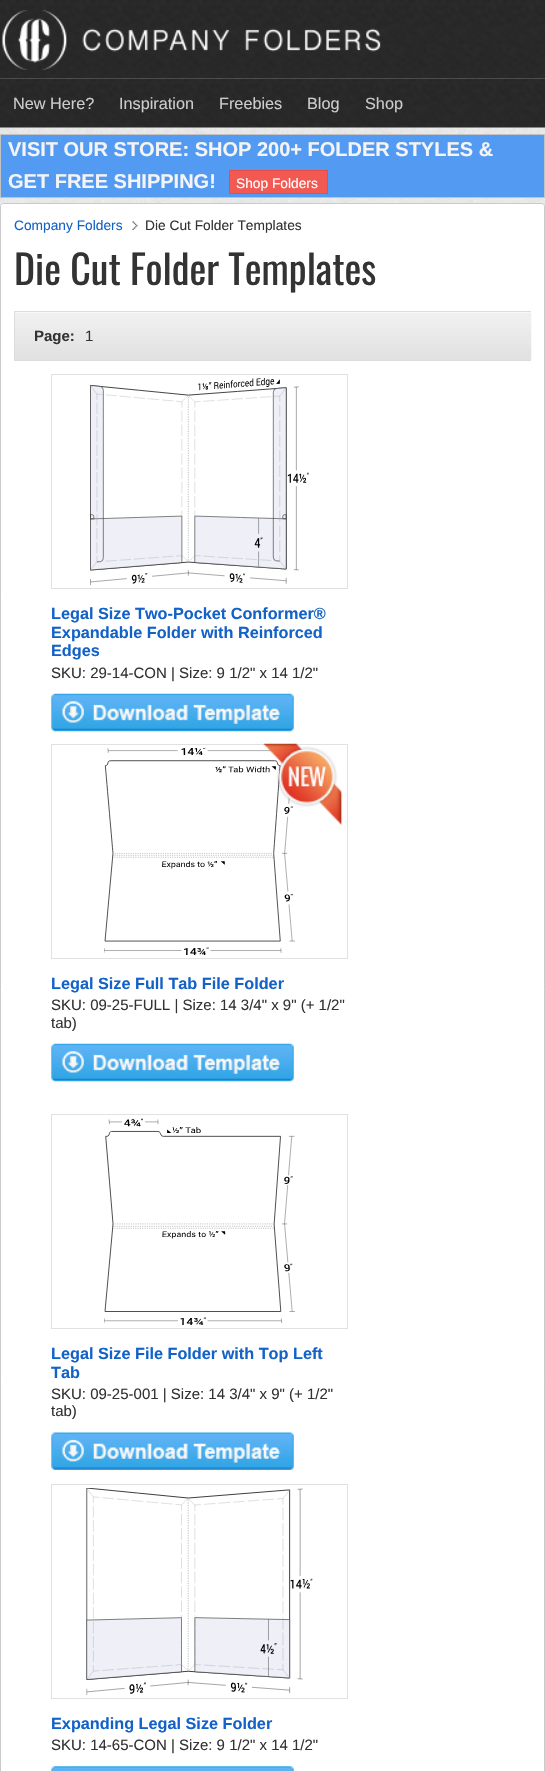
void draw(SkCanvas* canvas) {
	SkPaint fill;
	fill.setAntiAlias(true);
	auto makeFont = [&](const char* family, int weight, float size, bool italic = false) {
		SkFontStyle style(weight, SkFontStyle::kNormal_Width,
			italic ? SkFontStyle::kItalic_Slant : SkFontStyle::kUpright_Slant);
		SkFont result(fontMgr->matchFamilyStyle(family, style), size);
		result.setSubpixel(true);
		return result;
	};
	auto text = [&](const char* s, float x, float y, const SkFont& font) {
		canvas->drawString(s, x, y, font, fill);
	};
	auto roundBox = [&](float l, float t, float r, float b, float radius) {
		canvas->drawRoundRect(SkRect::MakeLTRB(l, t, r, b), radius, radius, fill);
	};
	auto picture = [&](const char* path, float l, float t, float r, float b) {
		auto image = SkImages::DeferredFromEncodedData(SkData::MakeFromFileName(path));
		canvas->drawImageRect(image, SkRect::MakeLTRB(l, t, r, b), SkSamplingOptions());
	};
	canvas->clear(0xFFFFFFFF);
	picture("image0.png", 0, 78, 545, 203);
	picture("image1.png", 0, 0, 545, 79);
	picture("image2.png", 2, 10, 381, 70);
	picture("image3.png", 0, 78, 545, 128);
	fill.setColor(0xFF529AF2);
	canvas->drawRect(SkRect::MakeLTRB(0.5f, 134.5f, 544.5f, 197.5f), fill);
	fill.setStyle(SkPaint::kStroke_Style);
	fill.setStrokeWidth(1);
	fill.setColor(0xFFC3C3C3);
	canvas->drawRect(SkRect::MakeLTRB(0.5f, 134.5f, 544.5f, 197.5f), fill);
	fill.setStyle(SkPaint::kFill_Style);
	fill.setColor(0xFFF25953);
	canvas->drawRect(SkRect::MakeLTRB(229.5f, 170.5f, 327.5f, 193.5f), fill);
	fill.setStyle(SkPaint::kStroke_Style);
	fill.setColor(0xFFE74C47);
	canvas->drawRect(SkRect::MakeLTRB(229.5f, 170.5f, 327.5f, 193.5f), fill);
	picture("image4.png", 0, 203, 545, 207);
	fill.setColor(0xFFCACACA);
	canvas->drawRoundRect(SkRect::MakeLTRB(0.5f, 203.5f, 544.5f, 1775.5f), 3.5f, 3.5f, fill);
	fill.setStyle(SkPaint::kFill_Style);
	fill.setColor(0xFFFFFFFF);
	roundBox(1, 204, 544, 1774, 2.5f);
	picture("image5.png", 132, 221, 138, 230);
	picture("image6.png", 15, 312, 532, 360);
	canvas->save();
	canvas->clipRect(SkRect::MakeLTRB(14, 311, 531, 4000));
	fill.setColor(0xFFDCDCDC);
	canvas->drawPath(SkPathBuilder().moveTo(14, 311).lineTo(14, 361).lineTo(544, 361).lineTo(544, 360).lineTo(15, 360).lineTo(15, 312).lineTo(544, 312).lineTo(544, 311).close().detach(), fill);
	canvas->restore();
	fill.setStyle(SkPaint::kStroke_Style);
	fill.setColor(0xFFE1E1E1);
	canvas->drawRect(SkRect::MakeLTRB(51.5f, 374.5f, 347.5f, 588.5f), fill);
	picture("image7.png", 90, 378, 309, 585);
	picture("image8.png", 51, 693, 294, 732);
	canvas->drawRect(SkRect::MakeLTRB(51.5f, 744.5f, 347.5f, 958.5f), fill);
	picture("image10.png", 104, 748, 295, 955);
	picture("image9.png", 263, 743, 343, 825);
	picture("image8.png", 51, 1043, 294, 1082);
	canvas->drawRect(SkRect::MakeLTRB(51.5f, 1114.5f, 347.5f, 1328.5f), fill);
	picture("image11.png", 104, 1118, 295, 1325);
	picture("image12.png", 51, 1432, 294, 1470);
	canvas->drawRect(SkRect::MakeLTRB(51.5f, 1484.5f, 347.5f, 1698.5f), fill);
	picture("image13.png", 86, 1488, 313, 1695);
	picture("image14.png", 51, 1766, 294, 1771);
	auto font1 = makeFont("Liberation Sans", 400, 16.25f);
	fill.setStyle(SkPaint::kFill_Style);
	fill.setColor(0xFFCCCCCC);
	text("New Here?", 13, 109, font1);
	text("Inspiration", 119, 109, font1);
	text("Freebies", 219, 109, font1);
	text("Blog", 307, 109, font1);
	text("Shop", 365, 109, font1);
	auto font2 = makeFont("Liberation Sans", 700, 20);
	fill.setColor(0xFFF4F4F4);
	text("VISIT OUR STORE: SHOP 200+ FOLDER STYLES &", 8, 156, font2);
	text("GET FREE SHIPPING!", 8, 188, font2);
	auto font3 = makeFont("Liberation Sans", 400, 13.75f);
	fill.setColor(0xFFFFFFFF);
	text("Shop Folders", 236, 188, font3);
	fill.setColor(0xFF1362C7);
	text("Company Folders", 14, 230, font3);
	fill.setColor(0xFF333333);
	text("Die Cut Folder Templates", 145, 230, font3);
	auto font4 = makeFont("Oswald", 400, 40);
	text("Die Cut Folder Templates", 14, 285, font4);
	auto font5 = makeFont("Liberation Sans", 700, 15);
	text("Page:", 34, 341, font5);
	auto font6 = makeFont("Liberation Sans", 400, 15);
	text("1", 85, 341, font6);
	auto font7 = makeFont("Liberation Sans", 700, 16.25f);
	fill.setColor(0xFF1362C7);
	text("Legal Size Two-Pocket Conformer®", 51, 619, font7);
	text("Expandable Folder with Reinforced", 51, 638, font7);
	text("Edges", 51, 656, font7);
	fill.setColor(0xFF333333);
	text("SKU: 29-14-CON | Size: 9 1/2\" x 14 1/2\"", 51, 678, font6);
	fill.setColor(0xFF1362C7);
	text("Legal Size Full Tab File Folder", 51, 989, font7);
	fill.setColor(0xFF333333);
	text("SKU: 09-25-FULL | Size: 14 3/4\" x 9\" (+ 1/2\"", 51, 1010, font6);
	text("tab)", 51, 1028, font6);
	fill.setColor(0xFF1362C7);
	text("Legal Size File Folder with Top Left", 51, 1359, font7);
	text("Tab", 51, 1378, font7);
	fill.setColor(0xFF333333);
	text("SKU: 09-25-001 | Size: 14 3/4\" x 9\" (+ 1/2\"", 51, 1399, font6);
	text("tab)", 51, 1416, font6);
	fill.setColor(0xFF1362C7);
	text("Expanding Legal Size Folder", 51, 1729, font7);
	fill.setColor(0xFF333333);
	text("SKU: 14-65-CON | Size: 9 1/2\" x 14 1/2\"", 51, 1750, font6);
}
